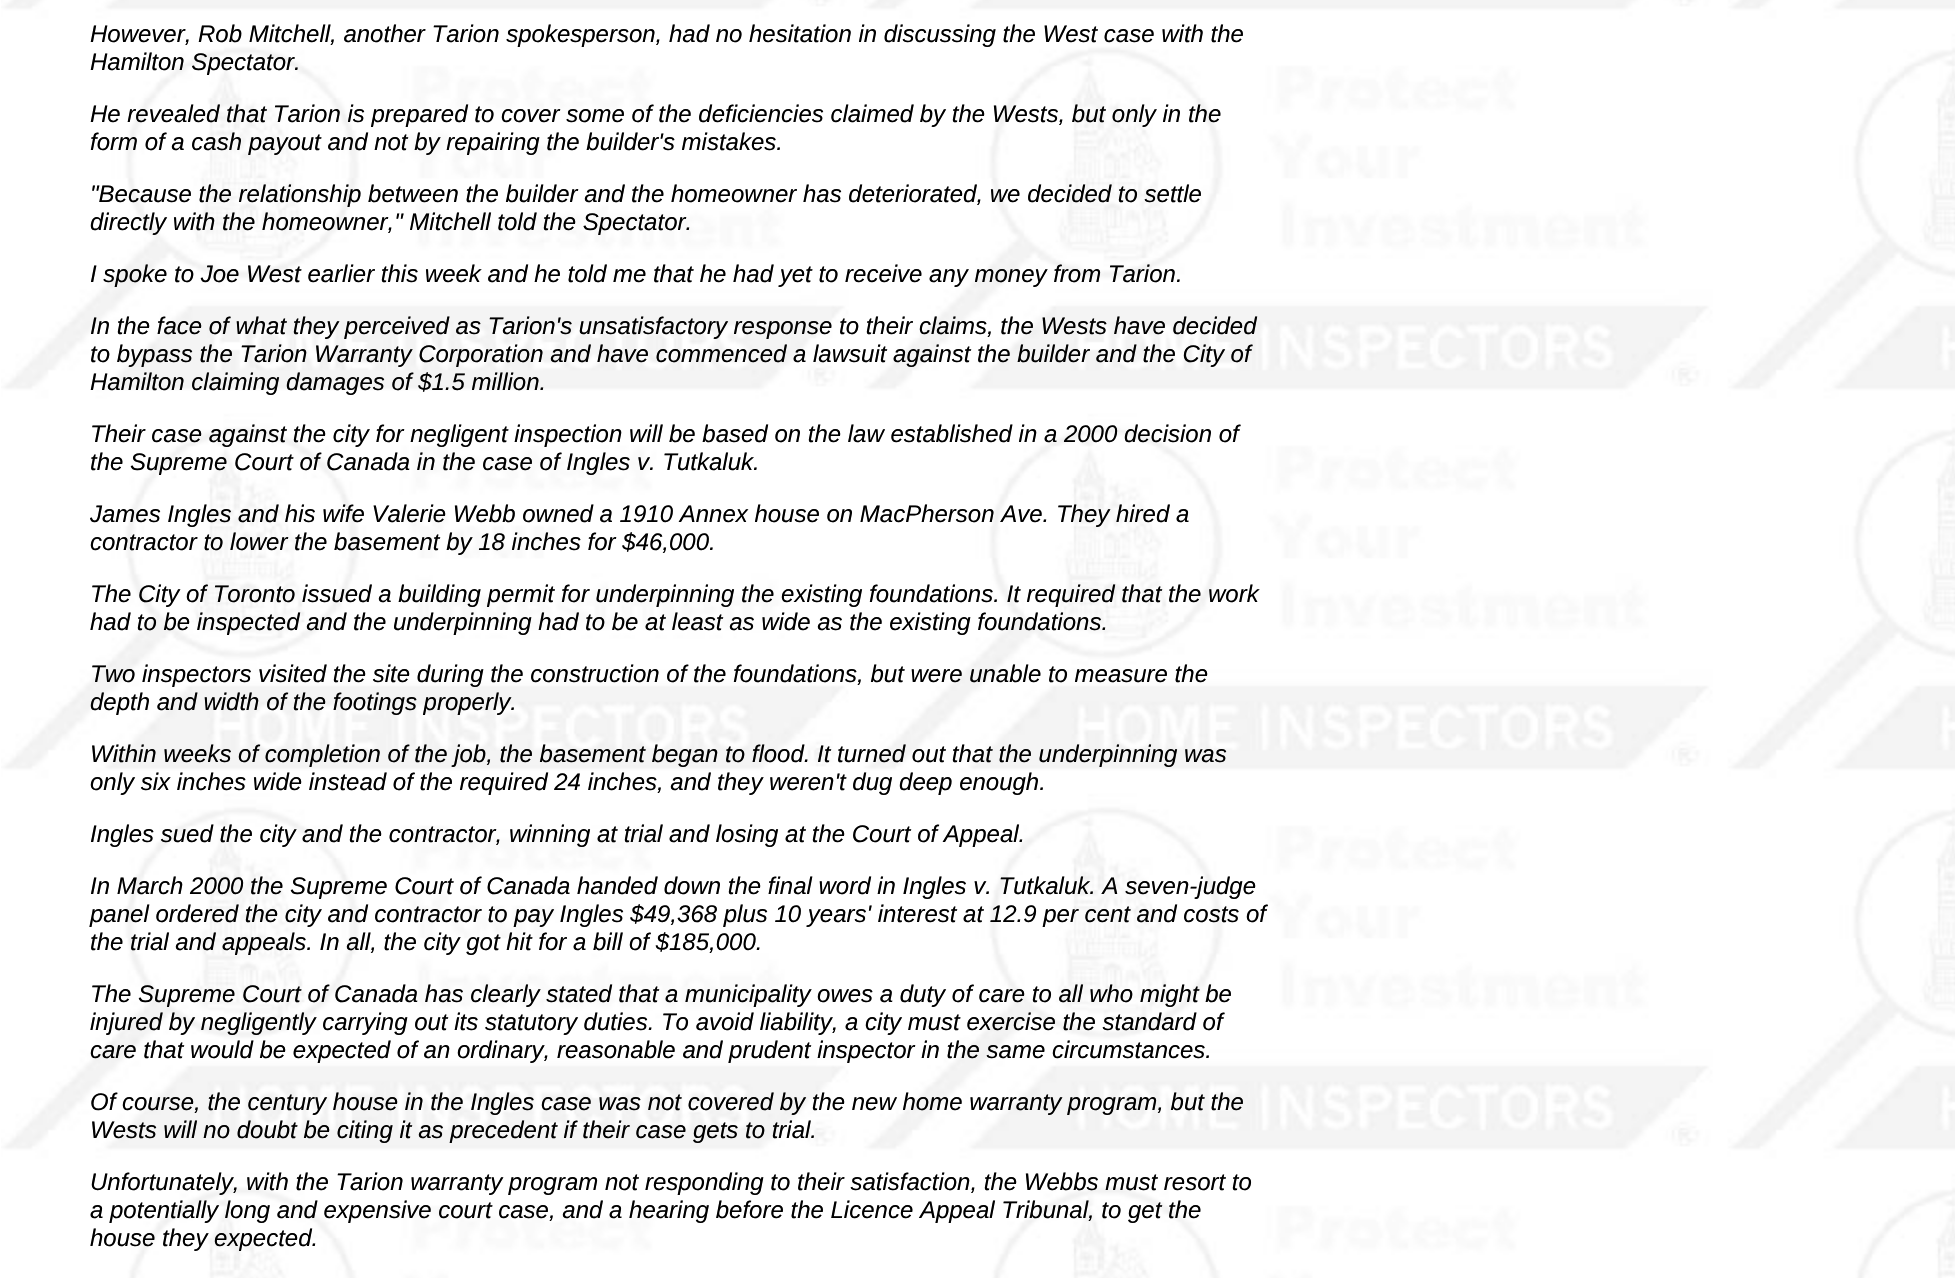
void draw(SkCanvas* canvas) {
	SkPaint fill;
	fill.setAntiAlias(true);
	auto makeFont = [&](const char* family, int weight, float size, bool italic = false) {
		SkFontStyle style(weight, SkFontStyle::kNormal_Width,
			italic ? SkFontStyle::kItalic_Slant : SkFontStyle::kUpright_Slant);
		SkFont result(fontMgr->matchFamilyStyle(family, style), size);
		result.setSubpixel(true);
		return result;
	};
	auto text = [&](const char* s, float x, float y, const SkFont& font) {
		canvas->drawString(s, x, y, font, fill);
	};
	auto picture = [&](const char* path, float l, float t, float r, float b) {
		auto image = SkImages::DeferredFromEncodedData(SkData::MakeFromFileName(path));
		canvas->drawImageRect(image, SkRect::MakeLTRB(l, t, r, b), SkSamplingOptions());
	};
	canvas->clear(0xFFFFFFFF);
	picture("image0.png", 1, 0, 1955, 1278);
	auto font1 = makeFont("Liberation Sans", 400, 24, true);
	fill.setColor(0xFF000000);
	text("However, Rob Mitchell, another Tarion spokesperson, had no hesitation in discussing the West case with the", 90, 42, font1);
	text("Hamilton Spectator.", 90, 70, font1);
	text("He revealed that Tarion is prepared to cover some of the deficiencies claimed by the Wests, but only in the", 90, 122, font1);
	text("form of a cash payout and not by repairing the builder's mistakes.", 90, 150, font1);
	text("\"Because the relationship between the builder and the homeowner has deteriorated, we decided to settle", 90, 202, font1);
	text("directly with the homeowner,\" Mitchell told the Spectator.", 90, 230, font1);
	text("I spoke to Joe West earlier this week and he told me that he had yet to receive any money from Tarion.", 90, 282, font1);
	text("In the face of what they perceived as Tarion's unsatisfactory response to their claims, the Wests have decided", 90, 334, font1);
	text("to bypass the Tarion Warranty Corporation and have commenced a lawsuit against the builder and the City of", 90, 362, font1);
	text("Hamilton claiming damages of $1.5 million.", 90, 390, font1);
	text("Their case against the city for negligent inspection will be based on the law established in a 2000 decision of", 90, 442, font1);
	text("the Supreme Court of Canada in the case of Ingles v. Tutkaluk.", 90, 470, font1);
	text("James Ingles and his wife Valerie Webb owned a 1910 Annex house on MacPherson Ave. They hired a", 90, 522, font1);
	text("contractor to lower the basement by 18 inches for $46,000.", 90, 550, font1);
	text("The City of Toronto issued a building permit for underpinning the existing foundations. It required that the work", 90, 602, font1);
	text("had to be inspected and the underpinning had to be at least as wide as the existing foundations.", 90, 630, font1);
	text("Two inspectors visited the site during the construction of the foundations, but were unable to measure the", 90, 682, font1);
	text("depth and width of the footings properly.", 90, 710, font1);
	text("Within weeks of completion of the job, the basement began to flood. It turned out that the underpinning was", 90, 762, font1);
	text("only six inches wide instead of the required 24 inches, and they weren't dug deep enough.", 90, 790, font1);
	text("Ingles sued the city and the contractor, winning at trial and losing at the Court of Appeal.", 90, 842, font1);
	text("In March 2000 the Supreme Court of Canada handed down the final word in Ingles v. Tutkaluk. A seven-judge", 90, 894, font1);
	text("panel ordered the city and contractor to pay Ingles $49,368 plus 10 years' interest at 12.9 per cent and costs of", 90, 922, font1);
	text("the trial and appeals. In all, the city got hit for a bill of $185,000.", 90, 950, font1);
	text("The Supreme Court of Canada has clearly stated that a municipality owes a duty of care to all who might be", 90, 1002, font1);
	text("injured by negligently carrying out its statutory duties. To avoid liability, a city must exercise the standard of", 90, 1030, font1);
	text("care that would be expected of an ordinary, reasonable and prudent inspector in the same circumstances.", 90, 1058, font1);
	text("Of course, the century house in the Ingles case was not covered by the new home warranty program, but the", 90, 1110, font1);
	text("Wests will no doubt be citing it as precedent if their case gets to trial.", 90, 1138, font1);
	text("Unfortunately, with the Tarion warranty program not responding to their satisfaction, the Webbs must resort to", 90, 1190, font1);
	text("a potentially long and expensive court case, and a hearing before the Licence Appeal Tribunal, to get the", 90, 1218, font1);
	text("house they expected.", 90, 1246, font1);
}
